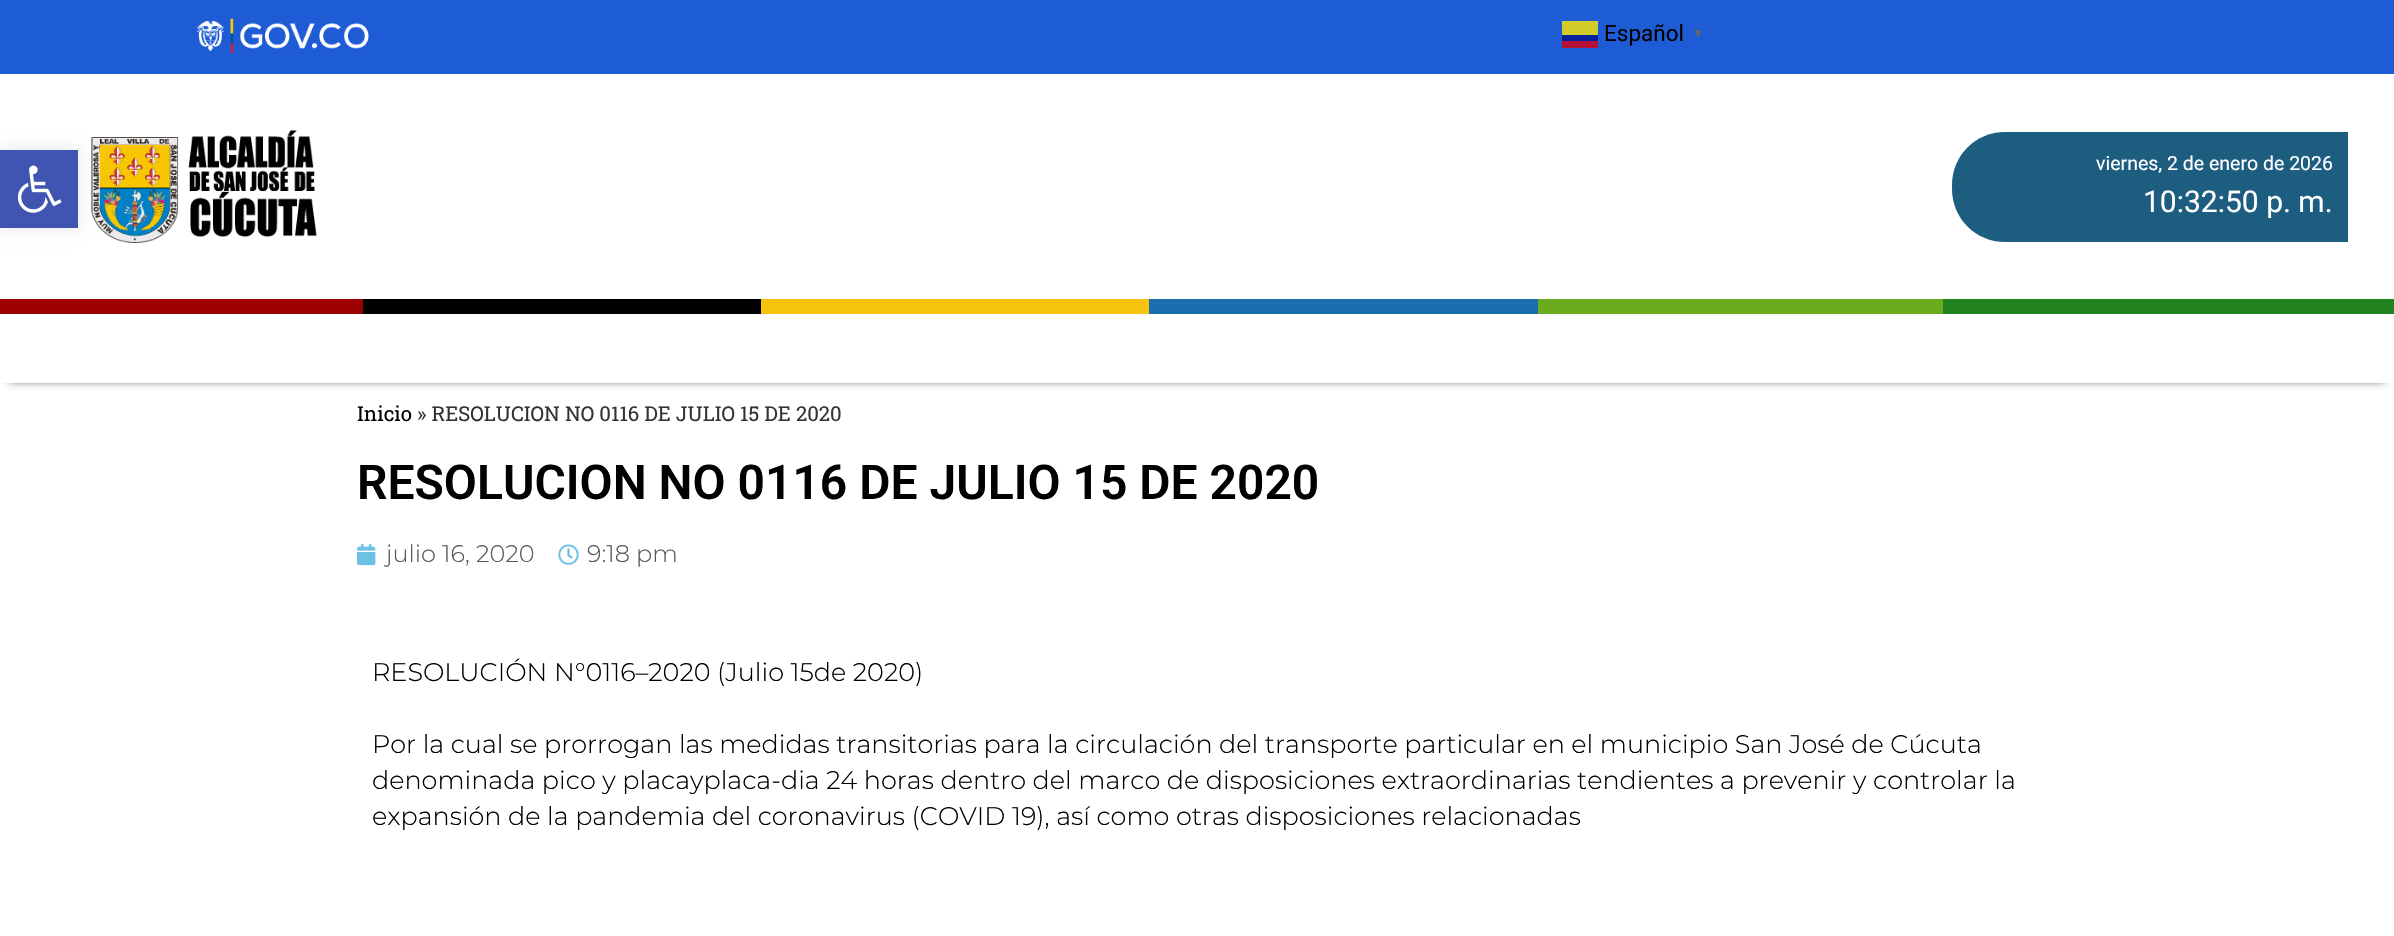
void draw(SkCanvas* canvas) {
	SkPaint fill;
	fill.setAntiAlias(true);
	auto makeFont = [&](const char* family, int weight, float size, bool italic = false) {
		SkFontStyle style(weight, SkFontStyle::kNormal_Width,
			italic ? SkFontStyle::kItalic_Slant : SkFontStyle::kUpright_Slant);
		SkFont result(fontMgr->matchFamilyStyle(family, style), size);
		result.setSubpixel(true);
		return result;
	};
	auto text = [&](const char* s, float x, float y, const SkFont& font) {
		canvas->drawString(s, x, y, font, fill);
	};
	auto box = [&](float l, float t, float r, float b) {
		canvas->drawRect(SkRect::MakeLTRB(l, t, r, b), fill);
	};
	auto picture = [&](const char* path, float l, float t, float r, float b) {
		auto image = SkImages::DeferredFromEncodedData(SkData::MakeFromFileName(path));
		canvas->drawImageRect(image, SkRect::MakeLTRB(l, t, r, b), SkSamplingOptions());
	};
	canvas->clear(0xFFFFFFFF);
	picture("image2.png", 91, 130, 317, 243);
	fill.setColor(0x1A000000);
	fill.setMaskFilter(SkMaskFilter::MakeBlur(kNormal_SkBlurStyle, 7.5f));
	canvas->drawRect(SkRect::MakeLTRB(0, 150, 78, 228), fill);
	fill.setMaskFilter(nullptr);
	fill.setColor(0xFF4054B2);
	box(0, 150, 78, 228);
	picture("image0.png", 17, 165, 62, 213);
	fill.setColor(0xFF1E5CD6);
	box(0, 0, 2394, 74);
	picture("image1.png", 196, 18, 369, 54);
	fill.setColor(0xFFD2CC2B);
	box(1562, 21, 1598, 35);
	fill.setColor(0xFF06229C);
	box(1562, 35, 1598, 41);
	fill.setColor(0xFFB41238);
	box(1562, 41, 1598, 48);
	fill.setColor(0xFF1D5D7F);
	canvas->drawPath(SkPathBuilder().moveTo(2005, 132).lineTo(2348, 132).lineTo(2348, 242).lineTo(2005, 242).cubicTo(1975.5f, 242, 1952, 218.5f, 1952, 189).lineTo(1952, 185).cubicTo(1952, 155.5f, 1975.5f, 132, 2005, 132).close().detach(), fill);
	canvas->save();
	canvas->clipPath(SkPathBuilder(SkPathFillType::kEvenOdd).moveTo(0, 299).lineTo(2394, 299).lineTo(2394, 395).lineTo(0, 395).close().moveTo(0, 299).lineTo(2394, 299).lineTo(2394, 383).lineTo(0, 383).close().detach(), true);
	fill.setColor(0xFF222222);
	fill.setMaskFilter(SkMaskFilter::MakeBlur(kNormal_SkBlurStyle, 4.5f));
	canvas->drawRect(SkRect::MakeLTRB(9, 314, 2385, 380), fill);
	fill.setMaskFilter(nullptr);
	canvas->restore();
	fill.setColor(0xFF9D0000);
	box(0, 299, 363, 314);
	fill.setColor(0xFF000000);
	box(363, 299, 761, 314);
	fill.setColor(0xFFF6C30F);
	box(761, 299, 1149, 314);
	fill.setColor(0xFF196FAD);
	box(1149, 299, 1538, 314);
	fill.setColor(0xFF6BAB1E);
	box(1538, 299, 1943, 314);
	fill.setColor(0xFF23831E);
	box(1943, 299, 2394, 314);
	picture("image3.png", 357, 544, 376, 566);
	picture("image4.png", 558, 544, 579, 565);
	auto font1 = makeFont("Roboto", 400, 22.5f);
	fill.setColor(0xFF000000);
	text("Español", 1604, 41, font1);
	auto font2 = makeFont("Liberation Sans", 700, 12);
	fill.setColor(0xFF666666);
	text("▼", 1692, 37, font2);
	auto font3 = makeFont("Roboto", 400, 19.5f);
	fill.setColor(0xFFFFFFFF);
	text("viernes, 2 de enero de 2026", 2096, 170, font3);
	auto font4 = makeFont("Roboto", 400, 30);
	text("10:32:50 p. m.", 2143, 212, font4);
	auto font5 = makeFont("Roboto Slab", 400, 20.4f);
	fill.setColor(0xFF000000);
	text("Inicio", 357, 421, font5);
	fill.setColor(0xFF333333);
	text("» RESOLUCION NO 0116 DE JULIO 15 DE 2020", 417, 421, font5);
	auto font6 = makeFont("Roboto", 600, 48);
	fill.setColor(0xFF000000);
	text("RESOLUCION NO 0116 DE JULIO 15 DE 2020", 357, 499, font6);
	auto font7 = makeFont("Montserrat", 300, 24);
	fill.setColor(0xFF54595F);
	text("julio 16, 2020", 386, 562, font7);
	text("9:18 pm", 587, 562, font7);
	auto font8 = makeFont("Montserrat", 300, 25.5f);
	fill.setColor(0xFF000000);
	text("RESOLUCIÓN N°0116–2020 (Julio 15de 2020)", 372, 681, font8);
	text("Por la cual se prorrogan las medidas transitorias para la circulación del transporte particular en el municipio San José de Cúcuta", 372, 753, font8);
	text("denominada pico y placayplaca-dia 24 horas dentro del marco de disposiciones extraordinarias tendientes a prevenir y controlar la", 372, 789, font8);
	text("expansión de la pandemia del coronavirus (COVID 19), así como otras disposiciones relacionadas", 372, 825, font8);
}
